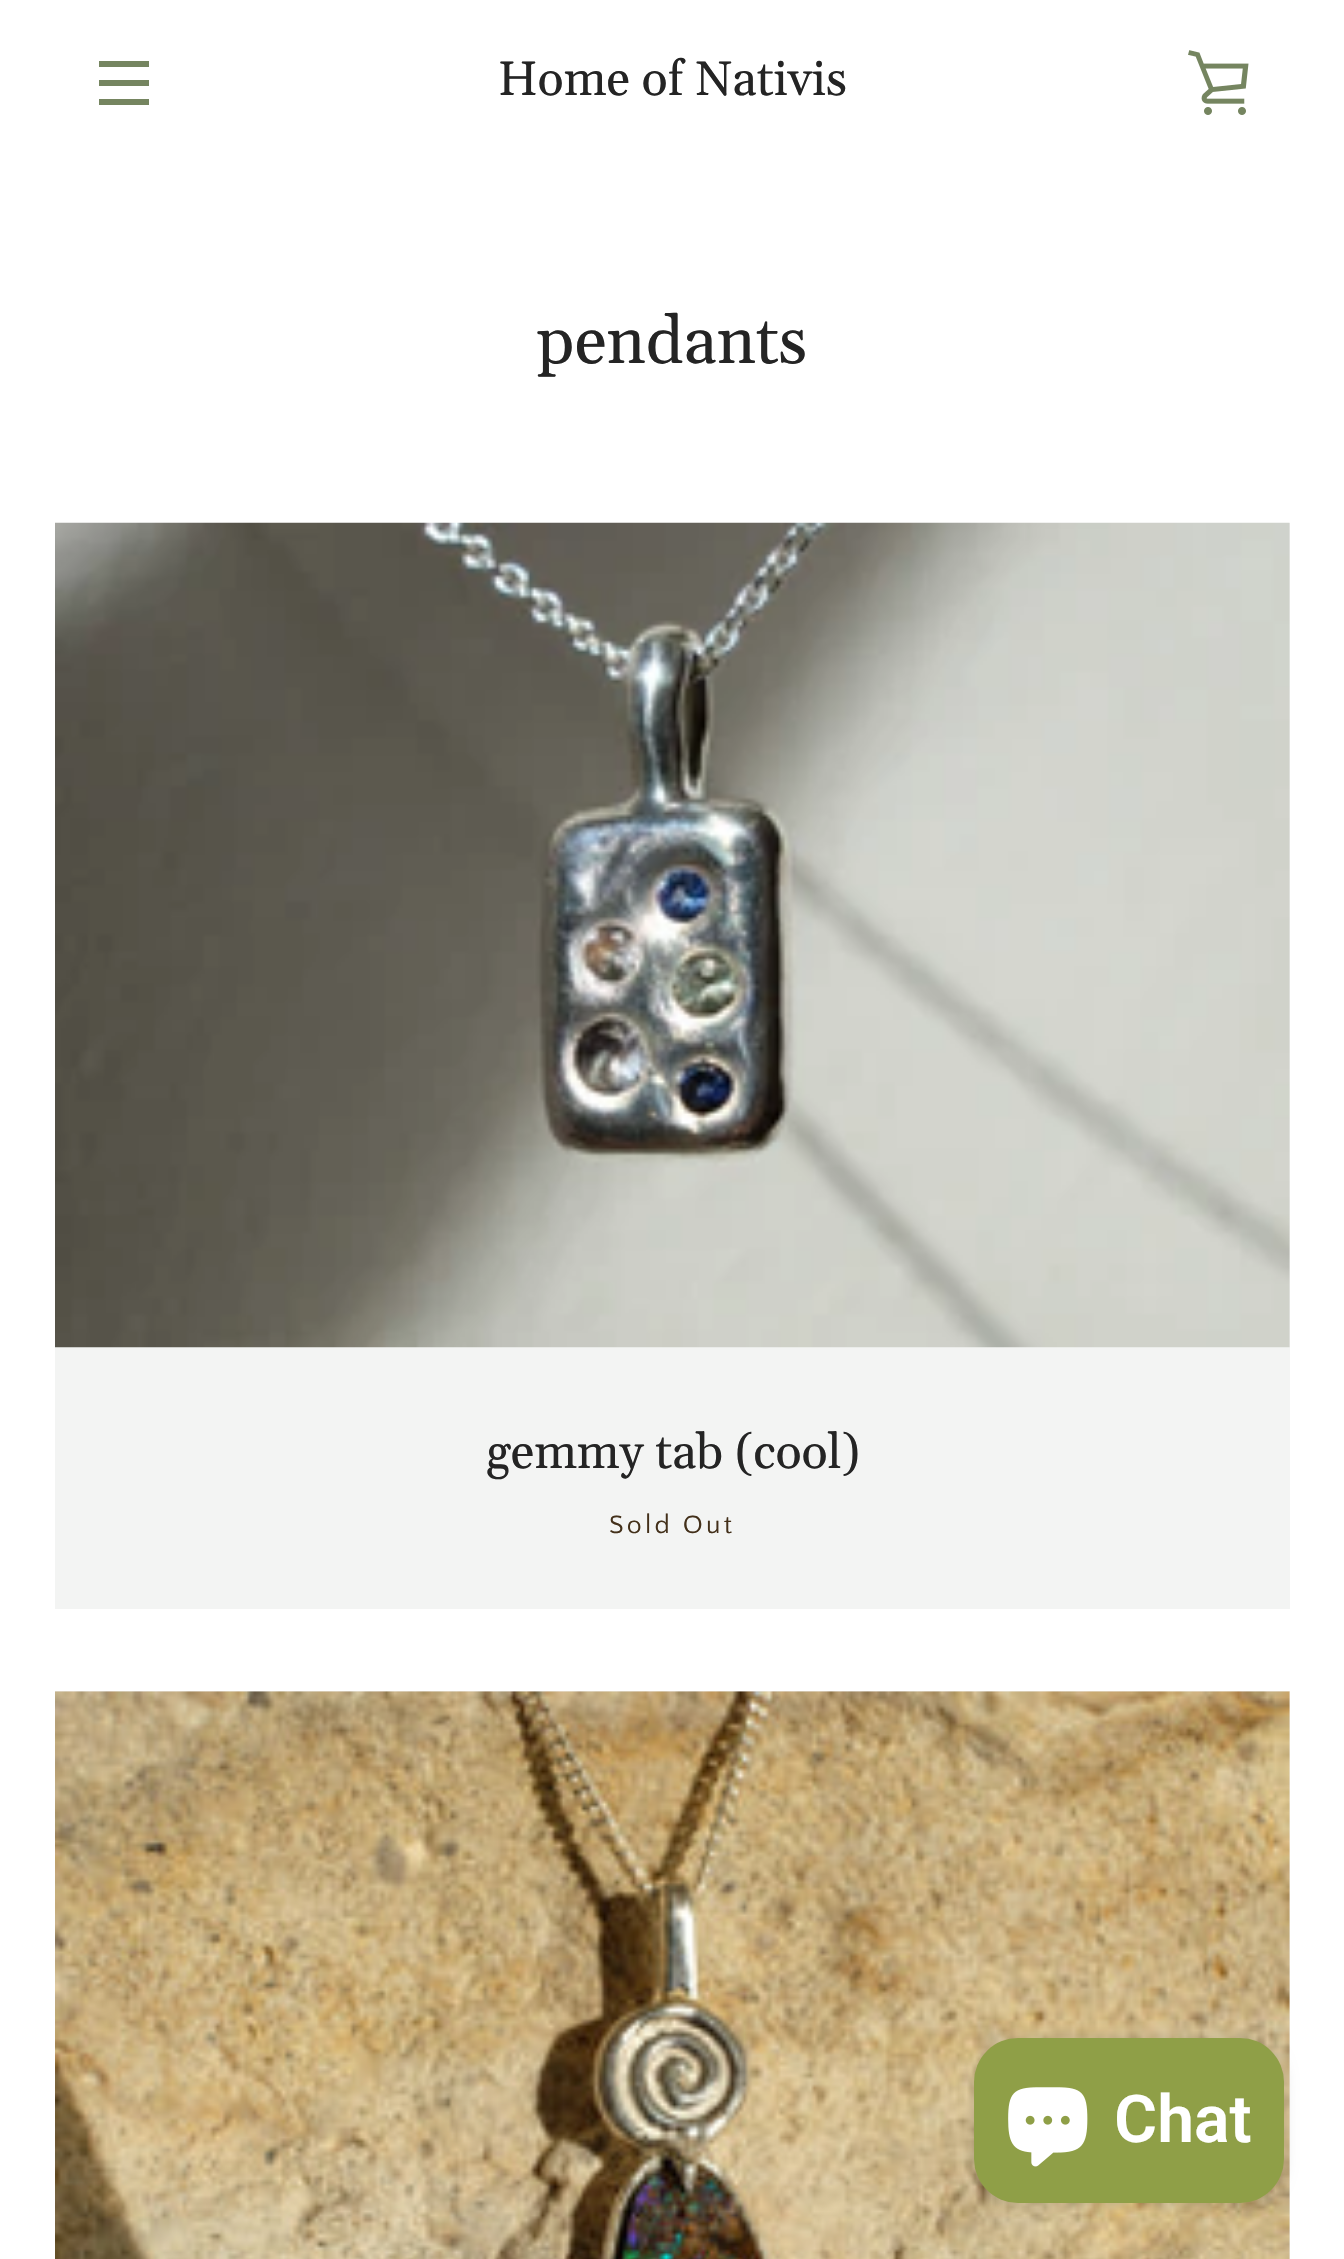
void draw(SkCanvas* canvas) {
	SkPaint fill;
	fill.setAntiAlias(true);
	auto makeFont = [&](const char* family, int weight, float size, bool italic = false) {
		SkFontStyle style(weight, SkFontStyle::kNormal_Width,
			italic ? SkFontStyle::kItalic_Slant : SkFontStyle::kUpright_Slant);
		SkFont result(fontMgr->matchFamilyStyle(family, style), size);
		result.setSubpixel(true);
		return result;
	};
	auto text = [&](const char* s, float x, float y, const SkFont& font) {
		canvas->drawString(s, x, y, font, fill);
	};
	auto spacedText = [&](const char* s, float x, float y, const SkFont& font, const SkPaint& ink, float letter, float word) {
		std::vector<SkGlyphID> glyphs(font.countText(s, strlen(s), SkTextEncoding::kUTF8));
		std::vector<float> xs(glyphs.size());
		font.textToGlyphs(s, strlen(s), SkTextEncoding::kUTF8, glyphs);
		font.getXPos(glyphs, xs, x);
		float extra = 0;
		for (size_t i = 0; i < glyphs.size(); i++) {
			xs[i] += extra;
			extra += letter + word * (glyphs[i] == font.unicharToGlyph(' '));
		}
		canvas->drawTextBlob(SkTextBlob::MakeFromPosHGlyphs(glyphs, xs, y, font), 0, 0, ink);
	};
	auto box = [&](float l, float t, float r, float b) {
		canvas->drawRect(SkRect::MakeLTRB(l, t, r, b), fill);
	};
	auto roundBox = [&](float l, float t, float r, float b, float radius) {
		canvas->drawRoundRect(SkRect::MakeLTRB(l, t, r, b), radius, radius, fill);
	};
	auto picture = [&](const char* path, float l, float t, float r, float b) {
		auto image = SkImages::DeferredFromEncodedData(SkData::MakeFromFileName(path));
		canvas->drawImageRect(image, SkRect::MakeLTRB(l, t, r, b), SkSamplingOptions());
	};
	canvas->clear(0xFFFFFFFF);
	fill.setColor(0xFF758560);
	box(99, 61, 149, 67);
	box(99, 80, 149, 86);
	box(99, 99, 149, 105);
	picture("image0.png", 1188, 50, 1249, 115);
	fill.setColor(0xFFF3F4F3);
	box(55, 523, 1290, 1609);
	picture("image1.png", 55, 522, 1290, 1348);
	box(55, 1691, 1290, 2259);
	picture("image2.png", 55, 1691, 1290, 2259);
	fill.setColor(0x26000000);
	fill.setMaskFilter(SkMaskFilter::MakeBlur(kNormal_SkBlurStyle, 7));
	canvas->drawRoundRect(SkRect::MakeLTRB(974, 2038, 1284, 2203), 44, 44, fill);
	fill.setMaskFilter(nullptr);
	fill.setColor(0xFF8F9F47);
	roundBox(974, 2038, 1284, 2203, 44);
	picture("image3.png", 1008, 2087, 1088, 2167);
	auto font1 = makeFont("Gelasio", 400, 48.5f);
	fill.setColor(0xFF242424);
	text("Home of Nativis", 498, 95, font1);
	auto font2 = makeFont("Gelasio", 400, 66);
	text("pendants", 537, 363, font2);
	text("gemmy tab (cool)", 486, 1468, font1);
	auto font3 = makeFont("Quattrocento Sans", 400, 26.5f);
	fill.setColor(0xFF43301A);
	spacedText("Sold Out", 609, 1533, font3, fill, 3.25f, 0);
	auto font4 = makeFont("Roboto", 600, 66);
	fill.setColor(0xFFFFFFFF);
	text("Chat", 1114, 2142, font4);
}
